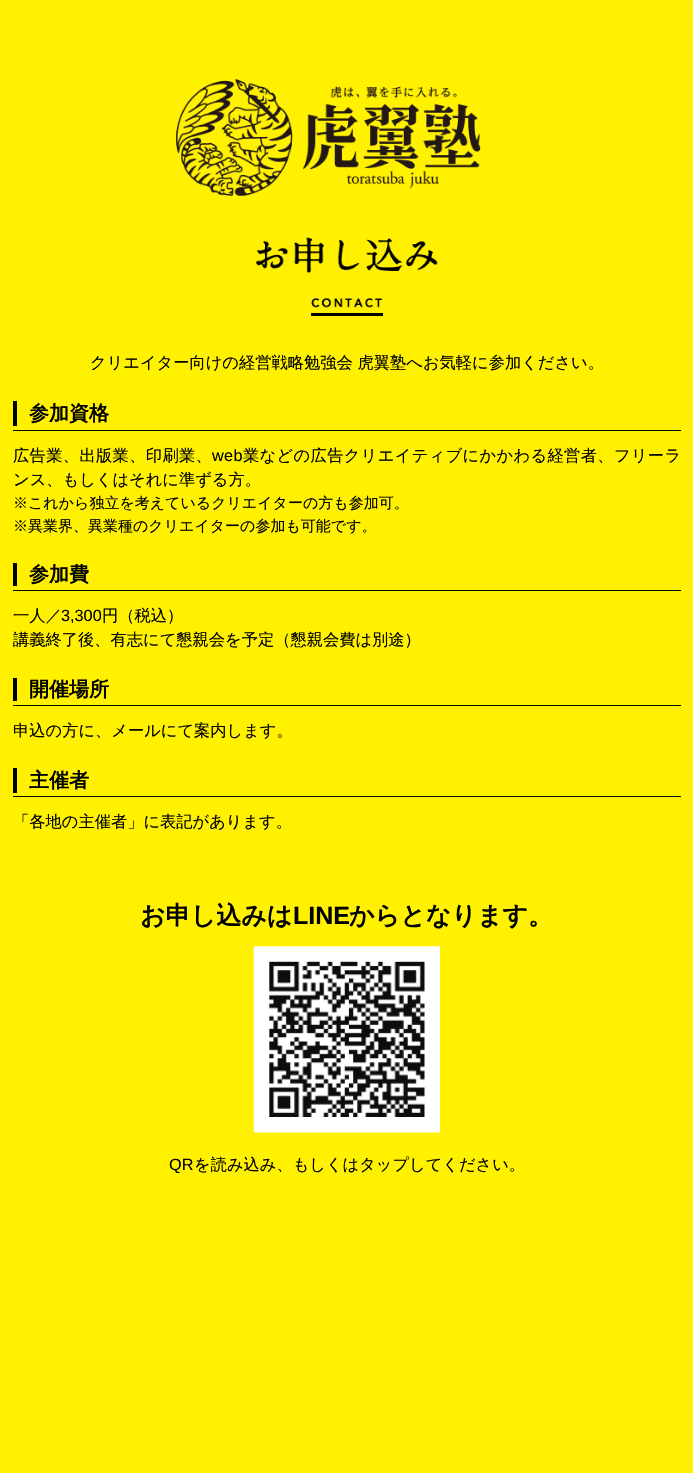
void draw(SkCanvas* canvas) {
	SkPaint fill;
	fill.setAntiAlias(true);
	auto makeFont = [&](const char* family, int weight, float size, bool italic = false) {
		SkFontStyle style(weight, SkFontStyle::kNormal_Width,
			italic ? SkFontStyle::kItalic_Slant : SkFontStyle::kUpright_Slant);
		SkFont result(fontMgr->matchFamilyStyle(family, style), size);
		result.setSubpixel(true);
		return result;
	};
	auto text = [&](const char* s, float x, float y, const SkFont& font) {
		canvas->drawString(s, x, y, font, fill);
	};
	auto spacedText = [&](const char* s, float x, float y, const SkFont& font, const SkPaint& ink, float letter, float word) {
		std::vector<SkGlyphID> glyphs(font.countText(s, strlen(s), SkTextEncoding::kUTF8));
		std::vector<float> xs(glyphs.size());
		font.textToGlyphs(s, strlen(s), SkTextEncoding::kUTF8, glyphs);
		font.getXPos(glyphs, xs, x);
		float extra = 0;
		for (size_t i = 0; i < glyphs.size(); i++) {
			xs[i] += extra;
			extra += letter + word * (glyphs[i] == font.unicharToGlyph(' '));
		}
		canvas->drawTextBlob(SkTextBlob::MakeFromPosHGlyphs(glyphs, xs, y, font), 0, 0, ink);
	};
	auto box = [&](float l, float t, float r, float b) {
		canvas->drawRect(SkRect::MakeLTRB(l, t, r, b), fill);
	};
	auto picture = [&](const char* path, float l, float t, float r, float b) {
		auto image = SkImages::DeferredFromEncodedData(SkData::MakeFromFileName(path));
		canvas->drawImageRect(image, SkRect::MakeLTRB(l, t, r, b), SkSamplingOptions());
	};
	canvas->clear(0xFFFFF100);
	picture("image0.png", 176, 79, 481, 196);
	picture("image1.png", 256, 237, 438, 273);
	fill.setColor(0xFF000000);
	box(311, 313, 383, 316);
	picture("image2.png", 311, 298, 383, 308);
	box(13, 430, 681, 431);
	box(13, 401, 17, 426);
	box(13, 590, 681, 591);
	box(13, 563, 17, 586);
	box(13, 705, 681, 706);
	box(13, 678, 17, 701);
	box(13, 796, 681, 797);
	box(13, 768, 17, 793);
	picture("image3.png", 253, 946, 440, 1133);
	auto font1 = makeFont("WenQuanYi Zen Hei", 500, 16.25f);
	text("クリエイター向けの経営戦略勉強会 虎翼塾へお気軽に参加ください。", 90, 368, font1);
	auto font2 = makeFont("WenQuanYi Zen Hei", 700, 20);
	text("参加資格", 29, 420, font2);
	spacedText("広告業、出版業、印刷業、", 13, 461, font1, fill, 0.35f, 0);
	auto font3 = makeFont("Liberation Sans", 400, 16.25f);
	spacedText("web", 212, 461, font3, fill, 0.35f, 0);
	spacedText("業などの広告クリエイティブにかかわる経営者、フリーラ", 243, 461, font1, fill, 0.35f, 0);
	text("ンス、もしくはそれに準ずる方。", 13, 485, font1);
	auto font4 = makeFont("WenQuanYi Zen Hei", 500, 15);
	text("※これから独立を考えているクリエイターの方も参加可。", 13, 508, font4);
	text("※異業界、異業種のクリエイターの参加も可能です。", 13, 531, font4);
	text("参加費", 29, 581, font2);
	text("一人／", 13, 621, font1);
	text("3,300", 61, 621, font3);
	text("円（税込）", 102, 621, font1);
	text("講義終了後、有志にて懇親会を予定（懇親会費は別途）", 13, 645, font1);
	text("開催場所", 29, 696, font2);
	text("申込の方に、メールにて案内します。", 13, 736, font1);
	text("主催者", 29, 787, font2);
	text("「各地の主催者」に表記があります。", 13, 827, font1);
	auto font5 = makeFont("WenQuanYi Zen Hei", 700, 25);
	text("お申し込みは", 140, 924, font5);
	auto font6 = makeFont("Liberation Sans", 700, 25);
	text("LINE", 293, 924, font6);
	text("からとなります。", 349, 924, font5);
	text("QR", 169, 1170, font3);
	text("を読み込み、もしくはタップしてください。", 194, 1170, font1);
}
